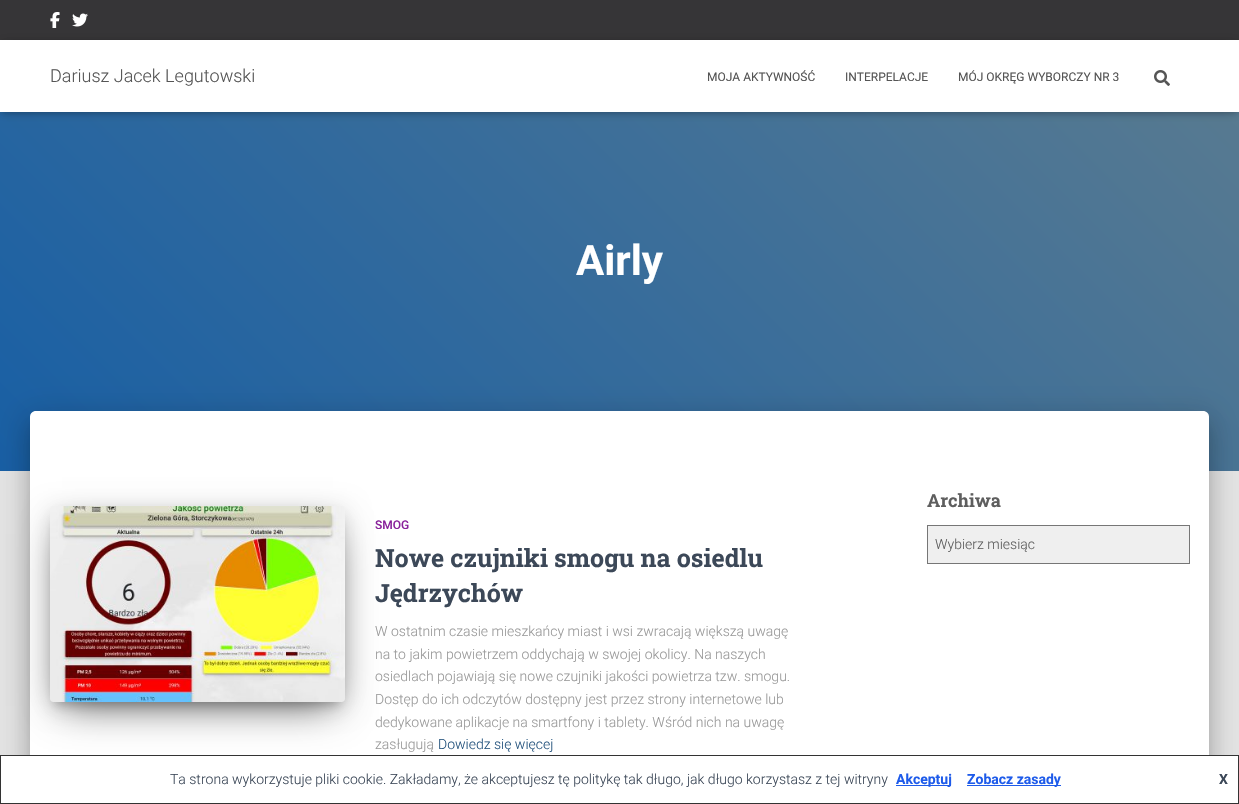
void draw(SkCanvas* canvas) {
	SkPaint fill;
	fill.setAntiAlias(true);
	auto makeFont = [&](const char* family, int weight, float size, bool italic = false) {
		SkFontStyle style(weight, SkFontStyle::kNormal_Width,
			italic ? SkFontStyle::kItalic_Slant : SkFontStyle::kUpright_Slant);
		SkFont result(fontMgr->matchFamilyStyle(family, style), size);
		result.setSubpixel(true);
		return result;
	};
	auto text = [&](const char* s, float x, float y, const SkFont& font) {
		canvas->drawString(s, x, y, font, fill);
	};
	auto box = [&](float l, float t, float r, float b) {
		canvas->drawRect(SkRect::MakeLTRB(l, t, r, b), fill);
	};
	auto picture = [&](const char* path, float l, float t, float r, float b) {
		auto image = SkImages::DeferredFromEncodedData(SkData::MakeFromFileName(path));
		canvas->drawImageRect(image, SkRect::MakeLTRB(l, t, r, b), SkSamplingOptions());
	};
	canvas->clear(0xFFE5E5E5);
	fill.setColor(0xFF363537);
	box(0, 0, 1239, 40);
	picture("image0.png", 50, 12, 60, 28);
	picture("image1.png", 72, 13, 88, 27);
	{
		const SkColor colors[] = {0xFF185FA5, 0xFF5A7B90};
		const float stops[] = {0, 1};
		const SkPoint ends[] = {{202, 673}, {1037, -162}};
		fill.setShader(SkGradientShader::MakeLinear(ends, colors, stops, 2, SkTileMode::kClamp));
		fill.setAlpha(255);
	}
	box(0, 112, 1239, 471);
	fill.setShader(nullptr);
	fill.setColor(0x1A000000);
	fill.setMaskFilter(SkMaskFilter::MakeBlur(kNormal_SkBlurStyle, 2.5f));
	canvas->drawRect(SkRect::MakeLTRB(2, 46, 1237, 114), fill);
	fill.setMaskFilter(nullptr);
	fill.setColor(0x1F000000);
	fill.setMaskFilter(SkMaskFilter::MakeBlur(kNormal_SkBlurStyle, 5));
	canvas->drawRect(SkRect::MakeLTRB(0, 41, 1239, 113), fill);
	fill.setMaskFilter(nullptr);
	fill.setColor(0x6B000000);
	fill.setMaskFilter(SkMaskFilter::MakeBlur(kNormal_SkBlurStyle, 5));
	canvas->drawRect(SkRect::MakeLTRB(6, 47, 1233, 107), fill);
	fill.setMaskFilter(nullptr);
	fill.setColor(0xFFFFFFFF);
	box(0, 40, 1239, 112);
	picture("image2.png", 1154, 70, 1170, 86);
	fill.setColor(0x33000000);
	fill.setMaskFilter(SkMaskFilter::MakeBlur(kNormal_SkBlurStyle, 5));
	canvas->drawRoundRect(SkRect::MakeLTRB(35, 424, 1204, 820), 1, 1, fill);
	fill.setMaskFilter(nullptr);
	fill.setColor(0x1F000000);
	fill.setMaskFilter(SkMaskFilter::MakeBlur(kNormal_SkBlurStyle, 15));
	canvas->drawRoundRect(SkRect::MakeLTRB(25, 412, 1214, 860), 11, 11, fill);
	fill.setMaskFilter(nullptr);
	fill.setColor(0x24000000);
	fill.setMaskFilter(SkMaskFilter::MakeBlur(kNormal_SkBlurStyle, 12));
	canvas->drawRoundRect(SkRect::MakeLTRB(28, 425, 1211, 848), 8, 8, fill);
	fill.setMaskFilter(nullptr);
	fill.setColor(0xFFFFFFFF);
	canvas->drawPath(SkPathBuilder().moveTo(36, 411).lineTo(1203, 411).cubicTo(1206.5f, 411, 1209, 413.5f, 1209, 417).lineTo(1209, 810).lineTo(30, 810).lineTo(30, 417).cubicTo(30, 413.5f, 32.5f, 411, 36, 411).close().detach(), fill);
	fill.setColor(0x33000000);
	fill.setMaskFilter(SkMaskFilter::MakeBlur(kNormal_SkBlurStyle, 5));
	canvas->drawRect(SkRect::MakeLTRB(55, 519, 340, 705), fill);
	fill.setMaskFilter(nullptr);
	fill.setColor(0x1F000000);
	fill.setMaskFilter(SkMaskFilter::MakeBlur(kNormal_SkBlurStyle, 12.5f));
	canvas->drawRoundRect(SkRect::MakeLTRB(50, 510, 345, 706), 3, 3, fill);
	fill.setMaskFilter(nullptr);
	fill.setColor(0x8F000000);
	fill.setMaskFilter(SkMaskFilter::MakeBlur(kNormal_SkBlurStyle, 19));
	canvas->drawRect(SkRect::MakeLTRB(62, 534, 333, 706), fill);
	fill.setMaskFilter(nullptr);
	picture("image3.png", 50, 506, 345, 702);
	fill.setColor(0xFFEFEFEF);
	canvas->drawRect(SkRect::MakeLTRB(927.5f, 525.5f, 1189.5f, 563.5f), fill);
	fill.setStyle(SkPaint::kStroke_Style);
	fill.setStrokeWidth(1);
	fill.setColor(0xFF767676);
	canvas->drawRect(SkRect::MakeLTRB(927.5f, 525.5f, 1189.5f, 563.5f), fill);
	fill.setStyle(SkPaint::kFill_Style);
	fill.setColor(0xFFFFFFFF);
	canvas->drawRect(SkRect::MakeLTRB(0.5f, 755.5f, 1238.5f, 803.5f), fill);
	fill.setStyle(SkPaint::kStroke_Style);
	fill.setColor(0xFF333333);
	canvas->drawRect(SkRect::MakeLTRB(0.5f, 755.5f, 1238.5f, 803.5f), fill);
	fill.setStyle(SkPaint::kFill_Style);
	fill.setColor(0xFF1E5BEA);
	box(896, 785, 951, 786);
	box(967, 785, 1061, 786);
	auto font1 = makeFont("Roboto", 300, 18);
	fill.setColor(0xFF555555);
	text("Dariusz Jacek Legutowski", 50, 82, font1);
	auto font2 = makeFont("Roboto", 400, 12);
	text("MOJA AKTYWNOŚĆ", 707, 81, font2);
	text("INTERPELACJE", 845, 81, font2);
	text("MÓJ OKRĘG WYBORCZY NR 3", 958, 81, font2);
	auto font3 = makeFont("Roboto", 700, 42);
	fill.setColor(0xFFFFFFFF);
	text("Airly", 576, 275, font3);
	auto font4 = makeFont("Roboto", 500, 12);
	fill.setColor(0xFF89229B);
	text("SMOG", 375, 529, font4);
	auto font5 = makeFont("Roboto Slab", 700, 25);
	fill.setColor(0xFF3C4858);
	text("Nowe czujniki smogu na osiedlu", 375, 567, font5);
	text("Jędrzychów", 375, 602, font5);
	auto font6 = makeFont("Roboto", 300, 14);
	fill.setColor(0xFF999999);
	text("W ostatnim czasie mieszkańcy miast i wsi zwracają większą uwagę", 375, 636, font6);
	text("na to jakim powietrzem oddychają w swojej okolicy. Na naszych", 375, 659, font6);
	text("osiedlach pojawiają się nowe czujniki jakości powietrza tzw. smogu.", 375, 681, font6);
	text("Dostęp do ich odczytów dostępny jest przez strony internetowe lub", 375, 704, font6);
	text("dedykowane aplikacje na smartfony i tablety. Wśród nich na uwagę", 375, 727, font6);
	text("zasługują", 375, 749, font6);
	fill.setColor(0xFF23527C);
	text("Dowiedz się więcej", 438, 749, font6);
	auto font7 = makeFont("Roboto Slab", 700, 18);
	fill.setColor(0xFF5E5E5E);
	text("Archiwa", 927, 507, font7);
	text("Wybierz miesiąc", 935, 549, font6);
	fill.setColor(0xFF3C4858);
	text("Ta strona wykorzystuje pliki cookie. Zakładamy, że akceptujesz tę politykę tak długo, jak długo korzystasz z tej witryny", 170, 784, font6);
	auto font8 = makeFont("Roboto", 700, 14);
	fill.setColor(0xFF1E5BEA);
	text("Akceptuj", 896, 784, font8);
	text("Zobacz zasady", 967, 784, font8);
	fill.setColor(0xFF3C4858);
	text("X", 1219, 784, font8);
}
